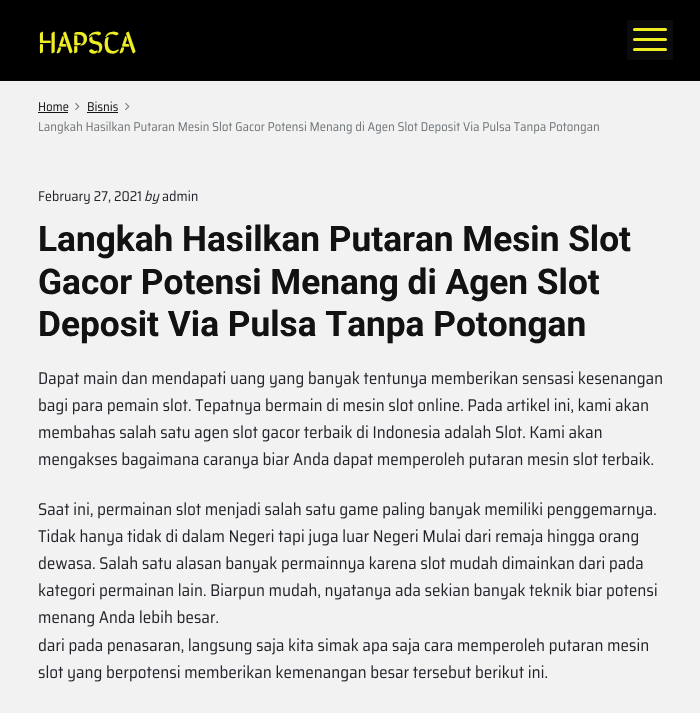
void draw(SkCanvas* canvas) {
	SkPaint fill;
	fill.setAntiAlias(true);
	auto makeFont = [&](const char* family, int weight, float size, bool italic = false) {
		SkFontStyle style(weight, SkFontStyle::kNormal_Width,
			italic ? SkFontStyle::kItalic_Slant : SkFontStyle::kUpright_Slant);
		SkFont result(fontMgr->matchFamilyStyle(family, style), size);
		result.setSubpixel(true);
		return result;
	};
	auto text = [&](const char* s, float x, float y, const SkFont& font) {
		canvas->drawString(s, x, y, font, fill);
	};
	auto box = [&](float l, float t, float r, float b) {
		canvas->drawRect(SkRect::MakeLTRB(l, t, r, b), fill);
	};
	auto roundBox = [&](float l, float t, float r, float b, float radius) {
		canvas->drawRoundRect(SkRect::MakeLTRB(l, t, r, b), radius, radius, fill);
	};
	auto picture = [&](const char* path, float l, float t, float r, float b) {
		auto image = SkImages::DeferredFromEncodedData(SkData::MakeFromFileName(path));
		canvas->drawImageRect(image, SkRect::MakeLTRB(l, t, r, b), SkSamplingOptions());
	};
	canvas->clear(0xFFF2F2F2);
	fill.setColor(0xFF000000);
	box(0, 0, 700, 80);
	fill.setColor(0xFF0B0B0B);
	roundBox(627, 20, 673, 60, 3);
	fill.setColor(0xFFEEEE22);
	roundBox(633, 38, 667, 41, 1.5f);
	roundBox(633, 28, 667, 31, 1.5f);
	roundBox(633, 48, 667, 51, 1.5f);
	fill.setColor(0xFF050809);
	box(0, 80, 700, 81);
	picture("image0.png", 39, 102, 69, 112);
	fill.setColor(0xFF141414);
	box(38, 112, 68, 113);
	picture("image1.png", 75, 102, 80, 111);
	picture("image2.png", 88, 101, 118, 112);
	box(87, 112, 118, 113);
	picture("image1.png", 125, 102, 130, 111);
	picture("image3.png", 39, 121, 599, 134);
	picture("image4.png", 39, 190, 141, 204);
	picture("image5.png", 145, 190, 160, 204);
	picture("image6.png", 162, 190, 198, 202);
	picture("image7.png", 39, 371, 662, 388);
	picture("image8.png", 39, 398, 648, 415);
	picture("image9.png", 39, 425, 602, 442);
	picture("image10.png", 39, 452, 654, 469);
	picture("image11.png", 38, 502, 656, 519);
	picture("image12.png", 38, 529, 638, 546);
	picture("image13.png", 38, 556, 643, 573);
	picture("image14.png", 39, 583, 657, 600);
	picture("image15.png", 39, 610, 218, 627);
	picture("image16.png", 38, 638, 648, 655);
	picture("image17.png", 38, 665, 547, 682);
	auto font1 = makeFont("SirinStencil", 400, 30.5f);
	fill.setColor(0xFFEEEE22);
	text("HAPSCA", 38, 53, font1);
	auto font2 = makeFont("Roboto", 700, 35.25f);
	fill.setColor(0xFF121212);
	text("Langkah Hasilkan Putaran Mesin Slot", 38, 251, font2);
	text("Gacor Potensi Menang di Agen Slot", 38, 294, font2);
	text("Deposit Via Pulsa Tanpa Potongan", 38, 336, font2);
}
